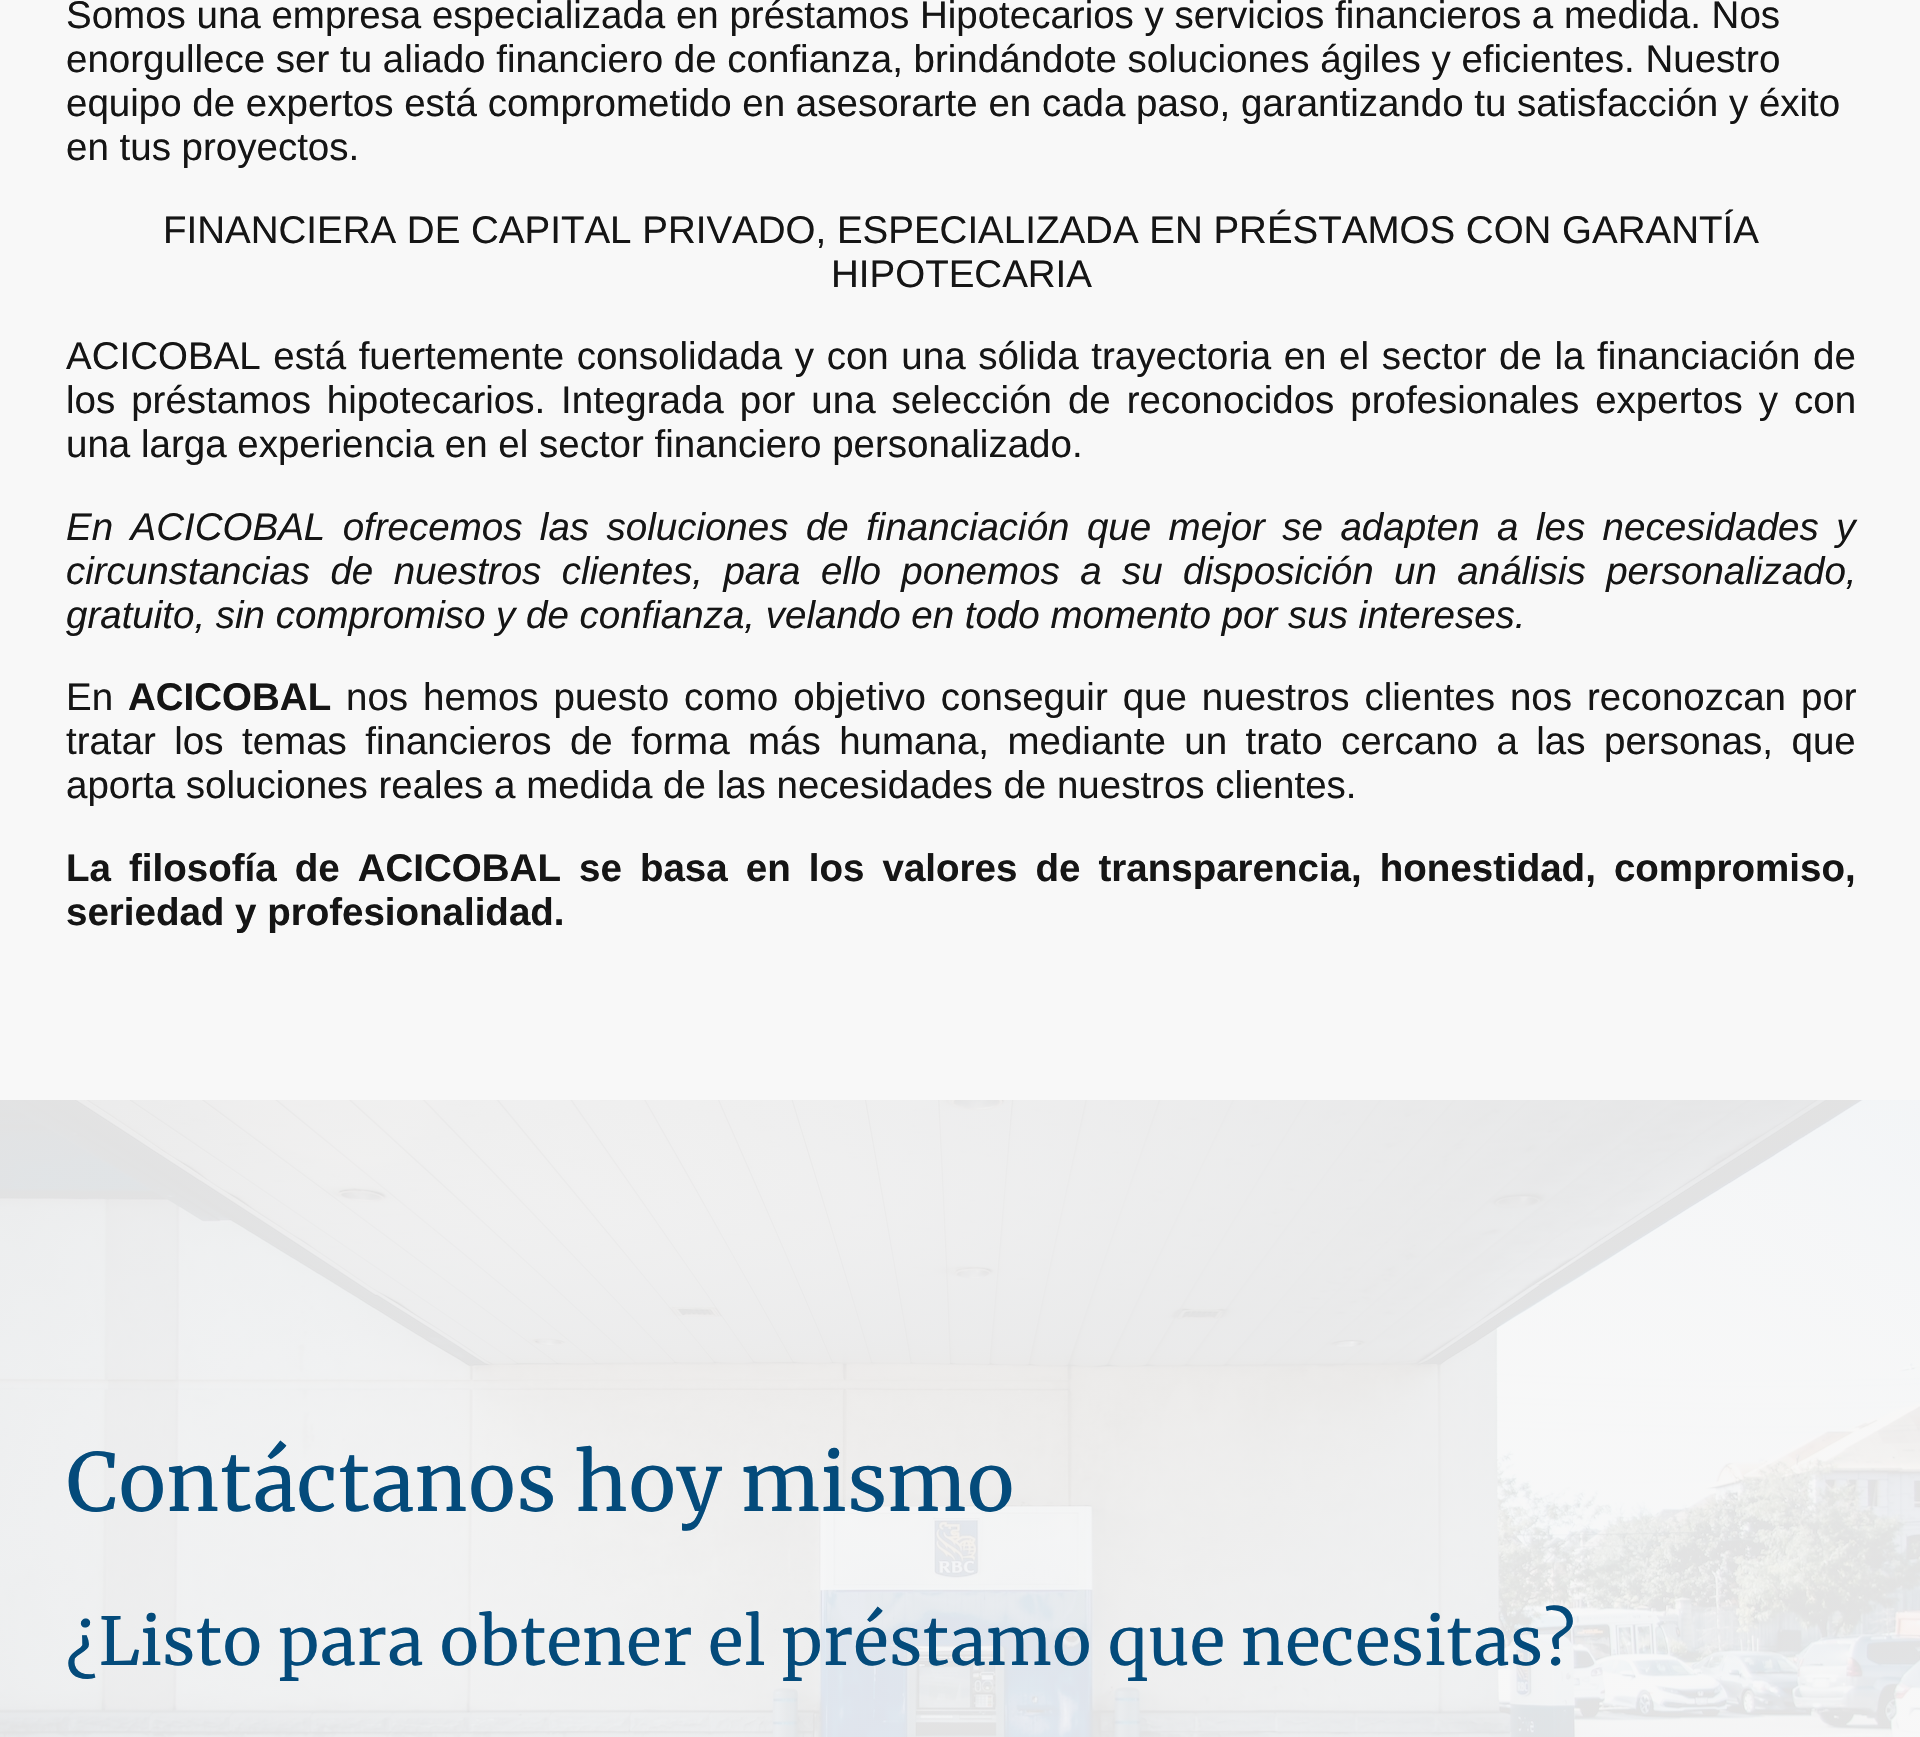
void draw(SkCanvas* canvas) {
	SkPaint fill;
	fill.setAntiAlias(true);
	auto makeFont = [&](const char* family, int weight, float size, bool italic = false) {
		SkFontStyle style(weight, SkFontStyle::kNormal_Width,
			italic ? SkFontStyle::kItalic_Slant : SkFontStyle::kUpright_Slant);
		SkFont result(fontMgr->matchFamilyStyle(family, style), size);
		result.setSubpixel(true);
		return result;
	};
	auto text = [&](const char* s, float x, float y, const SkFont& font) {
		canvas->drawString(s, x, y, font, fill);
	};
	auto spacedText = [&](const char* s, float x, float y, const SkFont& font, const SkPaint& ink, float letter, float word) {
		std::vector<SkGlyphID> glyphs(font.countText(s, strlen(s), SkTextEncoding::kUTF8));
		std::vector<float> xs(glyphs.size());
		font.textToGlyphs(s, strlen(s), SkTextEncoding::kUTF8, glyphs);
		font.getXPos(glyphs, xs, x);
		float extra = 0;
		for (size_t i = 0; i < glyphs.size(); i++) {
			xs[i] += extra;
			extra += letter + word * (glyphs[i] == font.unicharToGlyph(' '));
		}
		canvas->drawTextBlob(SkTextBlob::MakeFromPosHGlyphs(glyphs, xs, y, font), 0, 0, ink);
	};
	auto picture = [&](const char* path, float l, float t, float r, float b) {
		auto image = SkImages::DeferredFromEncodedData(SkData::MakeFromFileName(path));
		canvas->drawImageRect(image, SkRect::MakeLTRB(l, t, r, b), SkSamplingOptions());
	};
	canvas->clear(0xFFF8F8F8);
	picture("image0.png", 0, 1100, 1920, 1737);
	auto font1 = makeFont("Liberation Sans", 400, 38.5f);
	fill.setColor(0xFF151515);
	text("Somos una empresa especializada en préstamos Hipotecarios y servicios financieros a medida. Nos", 66, 28, font1);
	text("enorgullece ser tu aliado financiero de confianza, brindándote soluciones ágiles y eficientes. Nuestro", 66, 72, font1);
	text("equipo de expertos está comprometido en asesorarte en cada paso, garantizando tu satisfacción y éxito", 66, 116, font1);
	text("en tus proyectos.", 66, 160, font1);
	text("FINANCIERA DE CAPITAL PRIVADO, ESPECIALIZADA EN PRÉSTAMOS CON GARANTÍA", 163, 243, font1);
	text("HIPOTECARIA", 831, 287, font1);
	spacedText("ACICOBAL está fuertemente consolidada y con una sólida trayectoria en el sector de la financiación de", 66, 369, font1, fill, 0, 1.9f);
	spacedText("los préstamos hipotecarios. Integrada por una selección de reconocidos profesionales expertos y con", 66, 413, font1, fill, 0, 5.25f);
	text("una larga experiencia en el sector financiero personalizado.", 66, 457, font1);
	auto font2 = makeFont("Liberation Sans", 400, 38.5f, true);
	spacedText("En ACICOBAL ofrecemos las soluciones de financiación que mejor se adapten a les necesidades y", 66, 540, font2, fill, 0, 6.75f);
	spacedText("circunstancias de nuestros clientes, para ello ponemos a su disposición un análisis personalizado,", 66, 584, font2, fill, 0, 9.75f);
	text("gratuito, sin compromiso y de confianza, velando en todo momento por sus intereses.", 66, 628, font2);
	text("En", 66, 710, font1);
	auto font3 = makeFont("Liberation Sans", 700, 38.5f);
	text("ACICOBAL", 128, 710, font3);
	spacedText("nos hemos puesto como objetivo conseguir que nuestros clientes nos reconozcan por", 346, 710, font1, fill, 0, 4.25f);
	spacedText("tratar los temas financieros de forma más humana, mediante un trato cercano a las personas, que", 66, 754, font1, fill, 0, 7.75f);
	text("aporta soluciones reales a medida de las necesidades de nuestros clientes.", 66, 798, font1);
	spacedText("La filosofía de ACICOBAL se basa en los valores de transparencia, honestidad, compromiso,", 66, 881, font3, fill, 0, 7.4f);
	text("seriedad y profesionalidad.", 66, 925, font3);
	auto font4 = makeFont("Merriweather", 400, 79.75f);
	fill.setColor(0xFF044B7B);
	text("Contáctanos hoy mismo", 66, 1511, font4);
	auto font5 = makeFont("Merriweather", 400, 66);
	text("¿Listo para obtener el préstamo que necesitas?", 66, 1665, font5);
}
